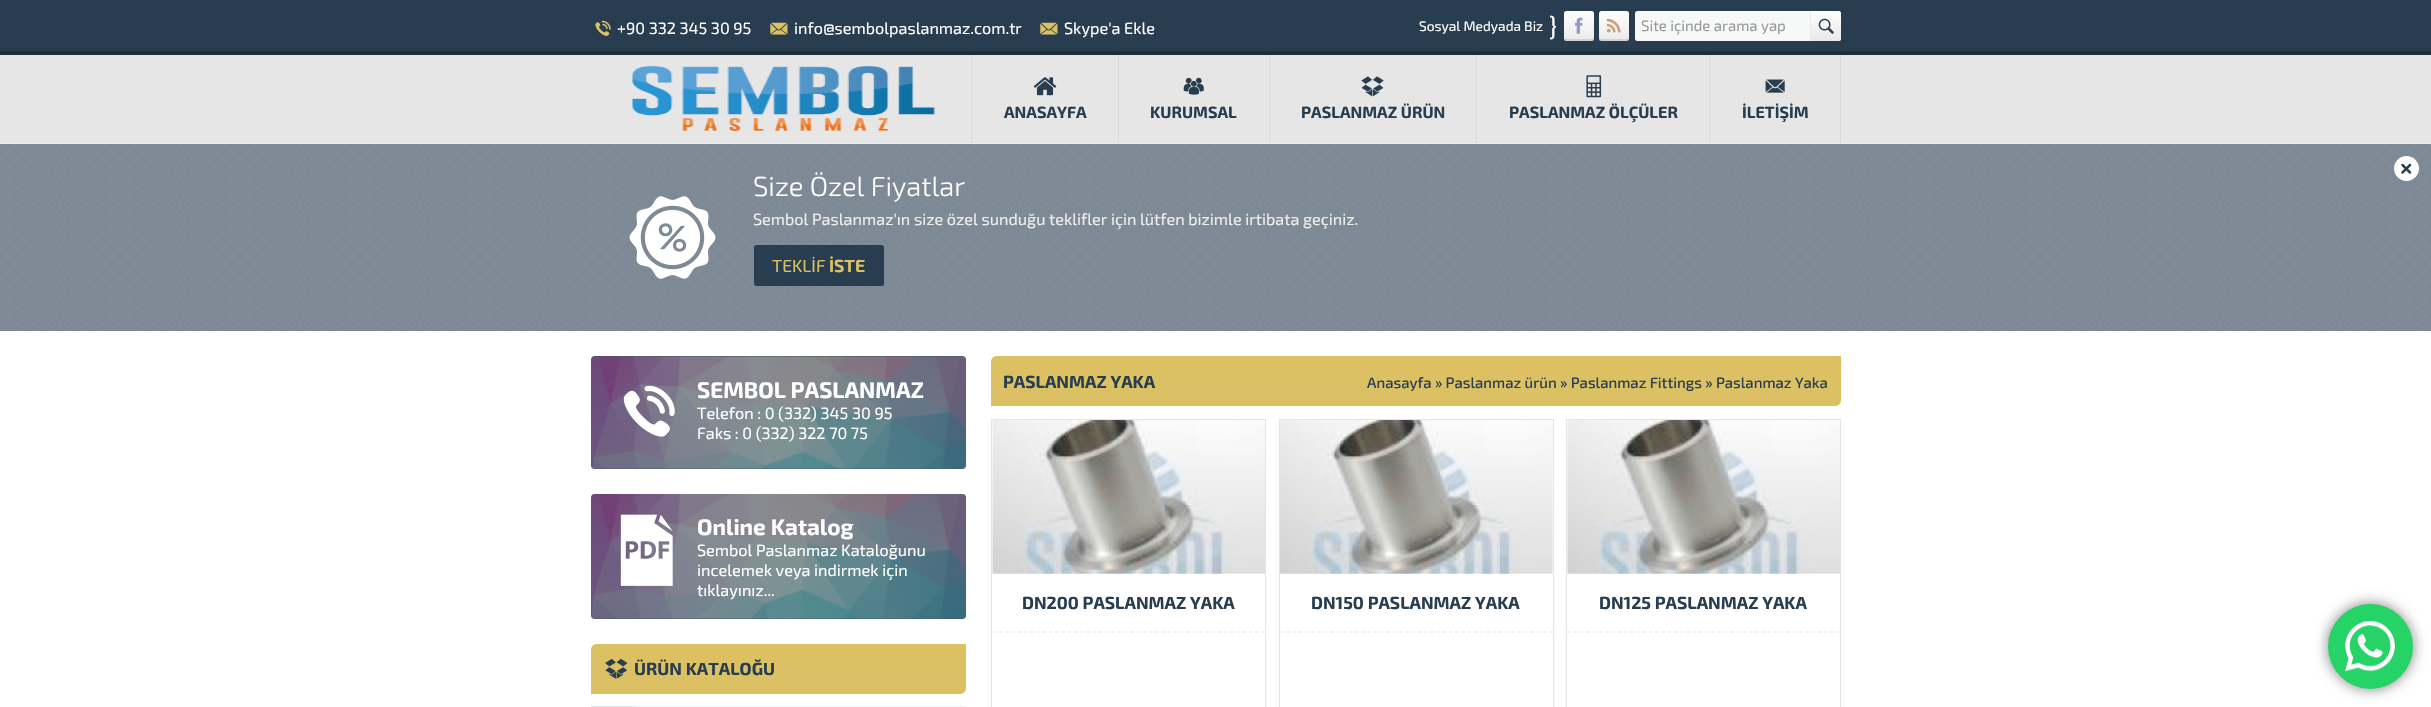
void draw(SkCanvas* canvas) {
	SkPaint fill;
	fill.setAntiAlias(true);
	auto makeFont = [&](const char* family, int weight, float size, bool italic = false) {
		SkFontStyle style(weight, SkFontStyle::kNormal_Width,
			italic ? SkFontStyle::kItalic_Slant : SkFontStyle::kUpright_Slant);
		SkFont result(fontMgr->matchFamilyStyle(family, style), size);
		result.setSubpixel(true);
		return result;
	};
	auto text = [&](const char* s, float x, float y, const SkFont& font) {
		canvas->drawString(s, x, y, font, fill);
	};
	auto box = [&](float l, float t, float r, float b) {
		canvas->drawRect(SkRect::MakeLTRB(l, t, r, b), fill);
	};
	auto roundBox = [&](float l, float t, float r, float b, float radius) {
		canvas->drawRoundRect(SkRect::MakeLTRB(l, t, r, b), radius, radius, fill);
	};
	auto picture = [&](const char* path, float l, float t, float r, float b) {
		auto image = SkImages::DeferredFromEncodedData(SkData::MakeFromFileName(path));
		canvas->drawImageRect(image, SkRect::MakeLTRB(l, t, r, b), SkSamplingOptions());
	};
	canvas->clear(0xFFFFFFFF);
	fill.setColor(0xFFE6E6E6);
	box(0, 55, 2431, 143);
	fill.setColor(0xFFEEEEEE);
	box(0, 143, 2431, 144);
	fill.setColor(0xFF283D4F);
	box(0, 0, 2431, 51);
	fill.setColor(0xFF1E2E3B);
	box(0, 51, 2431, 55);
	picture("image0.png", 595, 20, 611, 36);
	picture("image1.png", 770, 22, 788, 35);
	picture("image1.png", 1040, 22, 1058, 35);
	{
		const SkColor colors[] = {0xFFEAEAEA, 0xFFFFFFFF};
		const float stops[] = {0, 1};
		const SkPoint ends[] = {{1579, 41}, {1579, 11}};
		fill.setShader(SkGradientShader::MakeLinear(ends, colors, stops, 2, SkTileMode::kClamp));
		fill.setAlpha(255);
	}
	roundBox(1564, 11, 1594, 41, 2.5f);
	fill.setShader(nullptr);
	fill.setColor(0x1A000000);
	canvas->drawPath(SkPathBuilder().moveTo(1564, 36).cubicTo(1564, 41.5f, 1565, 41, 1570.5f, 41).lineTo(1587.5f, 41).cubicTo(1593, 41, 1594, 41.5f, 1594, 36).cubicTo(1594, 38, 1593, 39, 1591, 39).lineTo(1566, 39).cubicTo(1565, 39, 1564, 38, 1564, 36).close().detach(), fill);
	picture("image2.png", 1575, 17, 1583, 34);
	{
		const SkColor colors[] = {0xFFEAEAEA, 0xFFFFFFFF};
		const float stops[] = {0, 1};
		const SkPoint ends[] = {{1614, 41}, {1614, 11}};
		fill.setShader(SkGradientShader::MakeLinear(ends, colors, stops, 2, SkTileMode::kClamp));
		fill.setAlpha(255);
	}
	roundBox(1599, 11, 1629, 41, 2.5f);
	fill.setShader(nullptr);
	fill.setColor(0x1A000000);
	canvas->drawPath(SkPathBuilder().moveTo(1599, 36).cubicTo(1599, 41.5f, 1600, 41, 1605.5f, 41).lineTo(1622.5f, 41).cubicTo(1628, 41, 1629, 41.5f, 1629, 36).cubicTo(1629, 38, 1628, 39, 1626, 39).lineTo(1601, 39).cubicTo(1600, 39, 1599, 38, 1599, 36).close().detach(), fill);
	picture("image3.png", 1606, 18, 1621, 33);
	fill.setColor(0xFFF7F8F8);
	roundBox(1635, 11, 1841, 41, 2.5f);
	{
		const SkColor colors[] = {0xFFFFFFFF, 0xFFEAE8E8};
		const float stops[] = {0, 1};
		const SkPoint ends[] = {{1826, 11}, {1826, 41}};
		fill.setShader(SkGradientShader::MakeLinear(ends, colors, stops, 2, SkTileMode::kClamp));
		fill.setAlpha(255);
	}
	canvas->drawPath(SkPathBuilder().moveTo(1810, 11).lineTo(1838.5f, 11).cubicTo(1840, 11, 1841, 12, 1841, 13.5f).lineTo(1841, 38.5f).cubicTo(1841, 40, 1840, 41, 1838.5f, 41).lineTo(1810, 41).close().detach(), fill);
	fill.setShader(nullptr);
	fill.setColor(0xFFECEBEB);
	box(1810, 11, 1811, 41);
	picture("image4.png", 1818, 18, 1834, 34);
	picture("image5.png", 632, 66, 936, 131);
	fill.setColor(0xFFDBDBDB);
	box(1118, 55, 1119, 143);
	box(971, 55, 972, 143);
	picture("image6.png", 1033, 77, 1057, 96);
	box(1269, 55, 1270, 143);
	picture("image7.png", 1183, 77, 1204, 95);
	box(1476, 55, 1477, 143);
	picture("image8.png", 1361, 76, 1384, 97);
	box(1709, 55, 1710, 143);
	picture("image9.png", 1586, 75, 1602, 98);
	box(1840, 55, 1841, 143);
	picture("image10.png", 1765, 79, 1785, 93);
	fill.setColor(0xFF7E8A96);
	box(0, 144, 2431, 331);
	picture("image12.png", 0, 144, 2431, 331);
	fill.setColor(0xFFFFFFFF);
	canvas->drawCircle(2406.5f, 168.5f, 12.5f, fill);
	picture("image11.png", 2401, 163, 2412, 174);
	picture("image13.png", 629, 196, 716, 279);
	fill.setColor(0xFF283D4F);
	roundBox(754, 245, 884, 286, 2.5f);
	fill.setColor(0xFF485A69);
	roundBox(591, 356, 966, 469, 4);
	picture("image14.png", 591, 356, 967, 469);
	picture("image15.png", 623, 385, 675, 437);
	roundBox(591, 494, 966, 619, 4);
	picture("image16.png", 591, 493, 967, 619);
	picture("image17.png", 620, 514, 673, 586);
	fill.setColor(0xFFDBC164);
	canvas->drawPath(SkPathBuilder().moveTo(597, 644).lineTo(966, 644).lineTo(966, 688).cubicTo(966, 691.5f, 963.5f, 694, 960, 694).lineTo(591, 694).lineTo(591, 650).cubicTo(591, 646.5f, 593.5f, 644, 597, 644).close().detach(), fill);
	picture("image18.png", 605, 658, 628, 679);
	fill.setColor(0xFFE2E3E5);
	box(591, 706, 636, 707);
	fill.setColor(0xFFEEEFF1);
	box(636, 706, 966, 707);
	fill.setColor(0xFFDBC164);
	canvas->drawPath(SkPathBuilder().moveTo(997, 356).lineTo(1841, 356).lineTo(1841, 400).cubicTo(1841, 403.5f, 1838.5f, 406, 1835, 406).lineTo(991, 406).lineTo(991, 362).cubicTo(991, 358.5f, 993.5f, 356, 997, 356).close().detach(), fill);
	fill.setStyle(SkPaint::kStroke_Style);
	fill.setStrokeWidth(1);
	fill.setColor(0xFFE4E4E4);
	canvas->drawRect(SkRect::MakeLTRB(991.5f, 419.5f, 1265.5f, 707.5f), fill);
	picture("image19.png", 992, 420, 1265, 574);
	fill.setStrokeWidth(1.2f);
	fill.setPathEffect(SkDashPathEffect::Make({{3.75f, 2.5f}}, 0));
	canvas->drawPath(SkPathBuilder().moveTo(992.5f, 632).lineTo(1265, 632).detach(), fill);
	fill.setPathEffect(nullptr);
	fill.setStrokeWidth(1);
	canvas->drawRect(SkRect::MakeLTRB(1279.5f, 419.5f, 1553.5f, 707.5f), fill);
	picture("image20.png", 1280, 420, 1553, 574);
	fill.setStrokeWidth(1.2f);
	fill.setPathEffect(SkDashPathEffect::Make({{3.75f, 2.5f}}, 0));
	canvas->drawPath(SkPathBuilder().moveTo(1280, 632).lineTo(1552.5f, 632).detach(), fill);
	fill.setPathEffect(nullptr);
	fill.setStrokeWidth(1);
	canvas->drawRect(SkRect::MakeLTRB(1566.5f, 419.5f, 1840.5f, 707.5f), fill);
	picture("image21.png", 1567, 420, 1840, 574);
	fill.setStrokeWidth(1.2f);
	fill.setPathEffect(SkDashPathEffect::Make({{3.75f, 2.5f}}, 0));
	canvas->drawPath(SkPathBuilder().moveTo(1567.5f, 632).lineTo(1840, 632).detach(), fill);
	fill.setPathEffect(nullptr);
	fill.setStyle(SkPaint::kFill_Style);
	fill.setColor(0x80000000);
	fill.setMaskFilter(SkMaskFilter::MakeBlur(kNormal_SkBlurStyle, 7));
	canvas->drawRoundRect(SkRect::MakeLTRB(2328, 604, 2413, 689), 42.5f, 42.5f, fill);
	fill.setMaskFilter(nullptr);
	fill.setColor(0xFF25D366);
	canvas->drawCircle(2370.5f, 646.5f, 42.5f, fill);
	picture("image22.png", 2345, 621, 2395, 672);
	auto font1 = makeFont("Exo 2", 400, 16.25f);
	fill.setColor(0xFFFFFFFF);
	text("+90 332 345 30 95", 617, 34, font1);
	text("info@sembolpaslanmaz.com.tr", 794, 34, font1);
	text("Skype'a Ekle", 1064, 34, font1);
	auto font2 = makeFont("Exo 2", 400, 13.75f);
	text("Sosyal Medyada Biz", 1419, 31, font2);
	auto font3 = makeFont("Exo 2", 400, 25);
	text("}", 1549, 35, font3);
	auto font4 = makeFont("Exo 2", 400, 15);
	fill.setColor(0xFF999999);
	text("Site içinde arama yap", 1641, 31, font4);
	auto font5 = makeFont("Exo 2", 700, 16.25f);
	fill.setColor(0xFF283D4F);
	text("ANASAYFA", 1004, 118, font5);
	text("KURUMSAL", 1150, 118, font5);
	text("PASLANMAZ ÜRÜN", 1301, 118, font5);
	text("PASLANMAZ ÖLÇÜLER", 1509, 118, font5);
	text("İLETİŞİM", 1742, 118, font5);
	auto font6 = makeFont("Exo 2", 300, 27.5f);
	fill.setColor(0xFFFFFFFF);
	text("Size Özel Fiyatlar", 753, 196, font6);
	fill.setColor(0xFFEEEEEE);
	text("Sembol Paslanmaz'ın size özel sunduğu teklifler için lütfen bizimle irtibata geçiniz.", 753, 225, font1);
	auto font7 = makeFont("Exo 2", 400, 17.5f);
	fill.setColor(0xFFDBC164);
	text("TEKLİF", 772, 272, font7);
	auto font8 = makeFont("Exo 2", 700, 17.5f);
	text("İSTE", 829, 272, font8);
	auto font9 = makeFont("Exo 2", 700, 22.5f);
	fill.setColor(0xFFFFFFFF);
	text("SEMBOL PASLANMAZ", 697, 398, font9);
	text("Telefon : 0 (332) 345 30 95", 697, 419, font1);
	text("Faks : 0 (332) 322 70 75", 697, 439, font1);
	text("Online Katalog", 697, 535, font9);
	text("Sembol Paslanmaz Kataloğunu", 697, 556, font1);
	text("incelemek veya indirmek için", 697, 576, font1);
	text("tıklayınız...", 697, 596, font1);
	fill.setColor(0xFF283D4F);
	text("ÜRÜN KATALOĞU", 634, 675, font8);
	text("PASLANMAZ YAKA", 1003, 388, font8);
	auto font10 = makeFont("Exo 2", 500, 15);
	text("Anasayfa » Paslanmaz ürün » Paslanmaz Fittings » Paslanmaz Yaka", 1367, 388, font10);
	text("DN200 PASLANMAZ YAKA", 1022, 609, font8);
	text("DN150 PASLANMAZ YAKA", 1311, 609, font8);
	text("DN125 PASLANMAZ YAKA", 1599, 609, font8);
}
